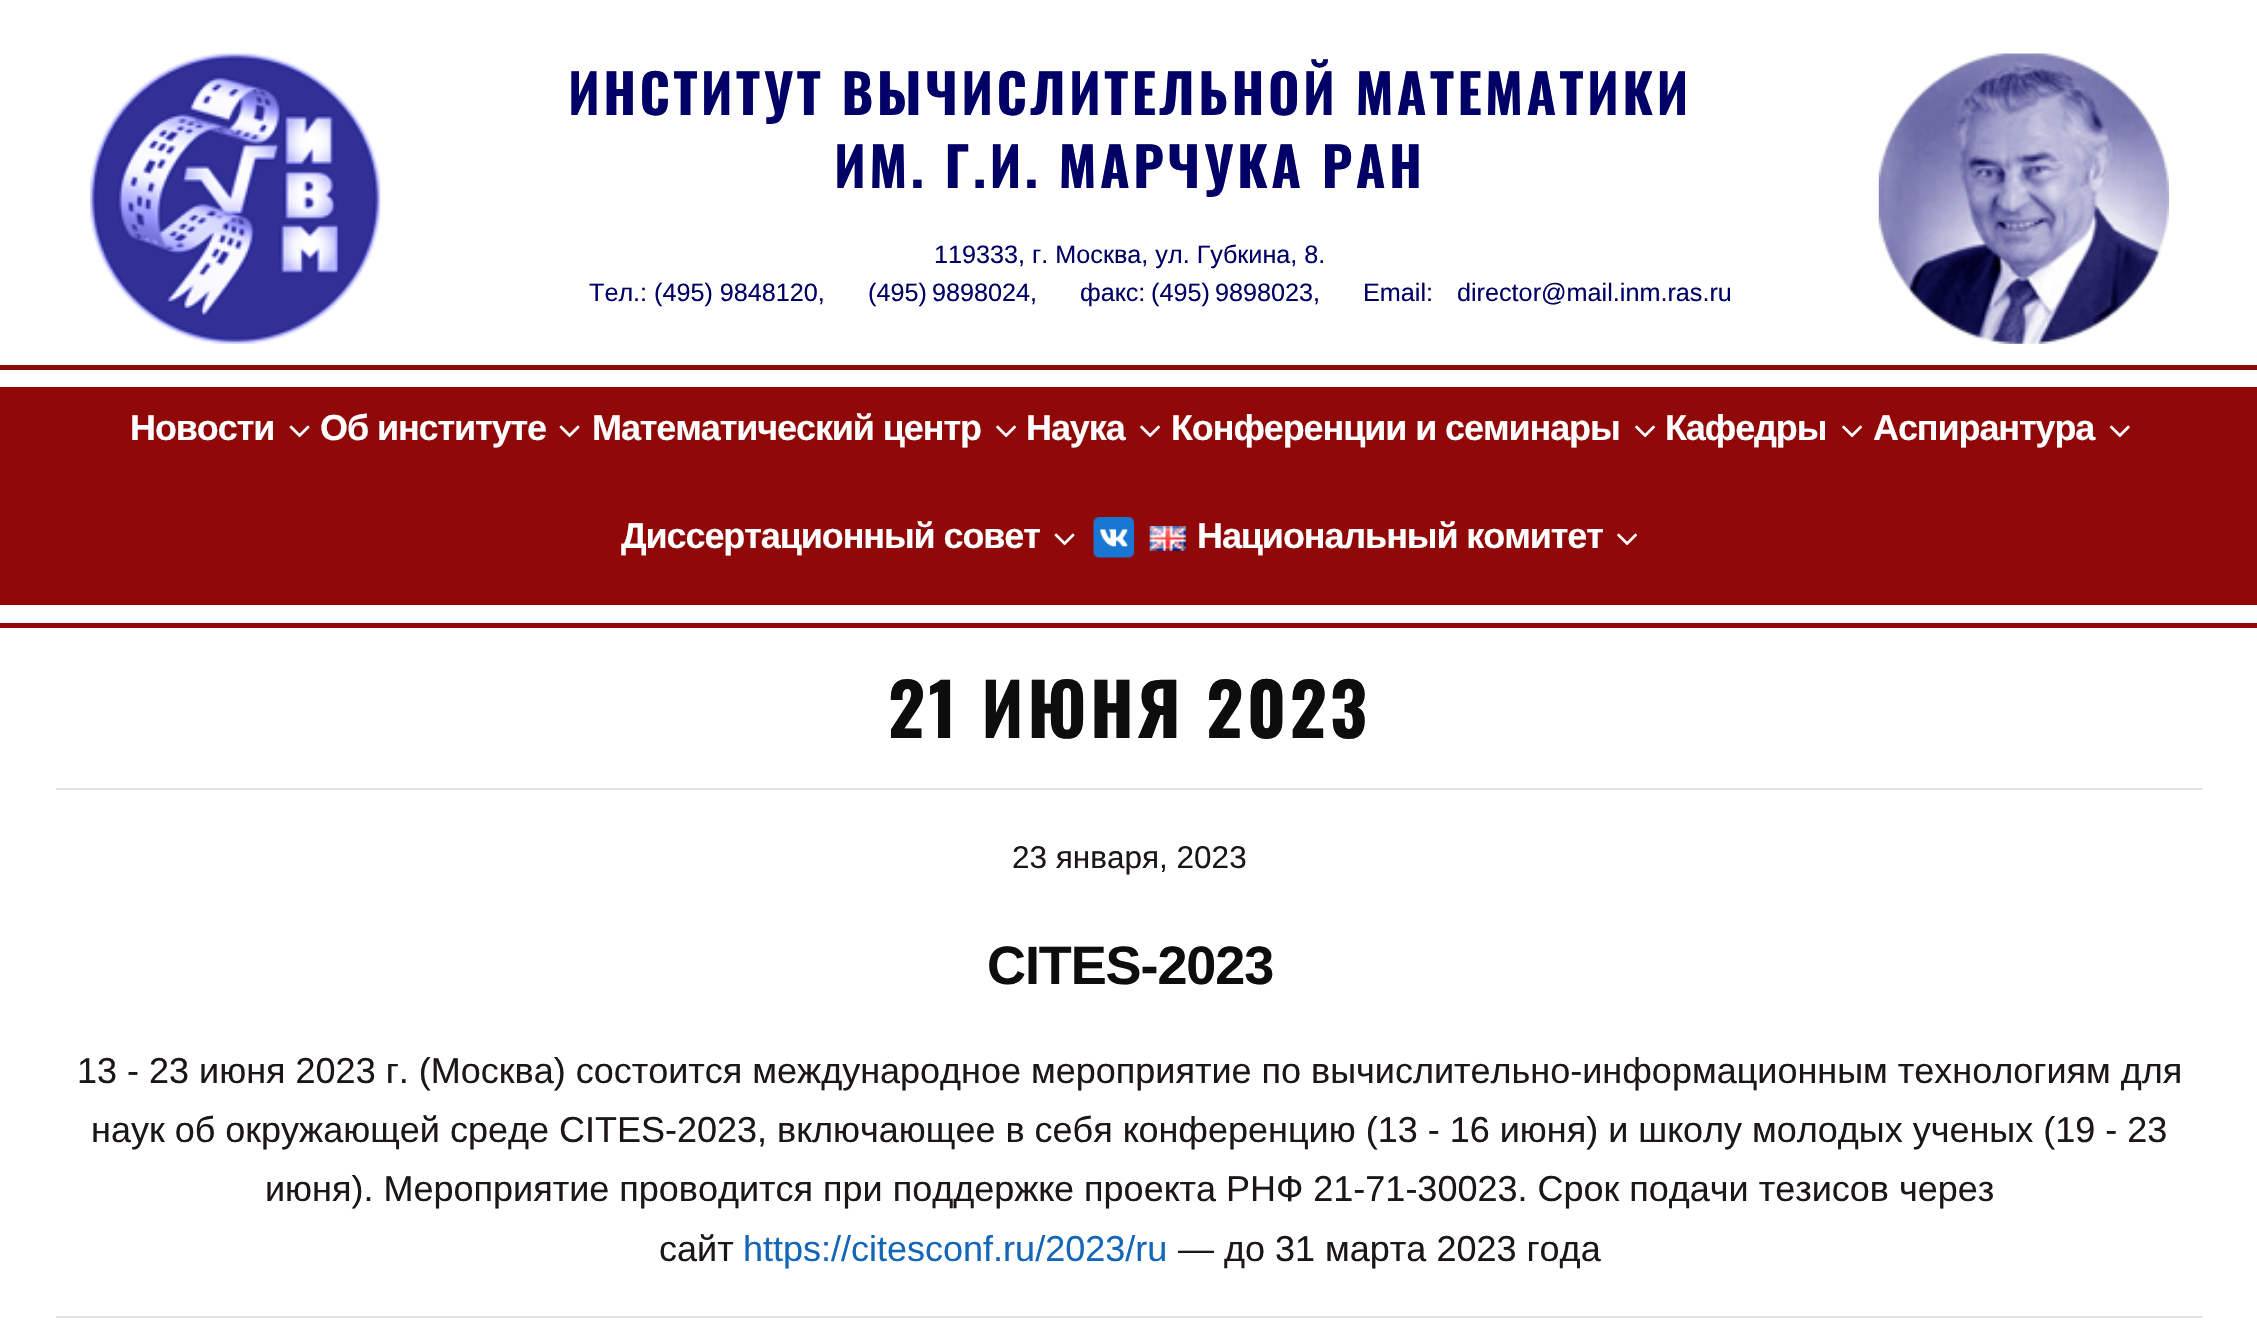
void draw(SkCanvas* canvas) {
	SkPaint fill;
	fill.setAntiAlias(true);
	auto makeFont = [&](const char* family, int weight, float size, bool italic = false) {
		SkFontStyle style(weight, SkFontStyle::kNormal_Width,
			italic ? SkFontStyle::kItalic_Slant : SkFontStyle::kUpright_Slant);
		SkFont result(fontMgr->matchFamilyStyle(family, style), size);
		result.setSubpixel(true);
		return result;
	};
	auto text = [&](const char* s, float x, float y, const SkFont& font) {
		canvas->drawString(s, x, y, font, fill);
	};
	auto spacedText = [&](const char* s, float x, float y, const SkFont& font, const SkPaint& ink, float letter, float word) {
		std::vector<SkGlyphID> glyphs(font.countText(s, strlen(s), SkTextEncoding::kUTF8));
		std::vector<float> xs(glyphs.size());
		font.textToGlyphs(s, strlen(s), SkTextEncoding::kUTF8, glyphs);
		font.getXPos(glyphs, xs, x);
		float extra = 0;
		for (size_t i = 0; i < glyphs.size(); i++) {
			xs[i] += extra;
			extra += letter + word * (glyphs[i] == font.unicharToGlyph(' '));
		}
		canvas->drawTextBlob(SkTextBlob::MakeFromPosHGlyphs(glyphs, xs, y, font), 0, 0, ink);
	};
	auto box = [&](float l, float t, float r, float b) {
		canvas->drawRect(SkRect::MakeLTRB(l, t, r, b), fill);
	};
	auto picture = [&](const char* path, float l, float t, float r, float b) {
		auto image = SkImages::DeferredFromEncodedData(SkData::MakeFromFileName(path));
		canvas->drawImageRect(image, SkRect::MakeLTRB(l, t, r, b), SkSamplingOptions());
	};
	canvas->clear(0xFFFFFFFF);
	picture("image0.png", 90, 53, 381, 344);
	picture("image1.png", 1878, 53, 2169, 344);
	fill.setColor(0xFF910808);
	box(0, 365, 2257, 370);
	box(0, 387, 2257, 605);
	picture("image2.png", 289, 425, 310, 438);
	picture("image2.png", 559, 425, 580, 438);
	picture("image3.png", 996, 425, 1017, 438);
	picture("image3.png", 1140, 425, 1161, 438);
	picture("image3.png", 1635, 425, 1656, 438);
	picture("image3.png", 1842, 425, 1863, 438);
	picture("image4.png", 2109, 425, 2130, 438);
	picture("image2.png", 1054, 533, 1075, 546);
	picture("image5.png", 1093, 517, 1135, 558);
	picture("image6.png", 1149, 526, 1186, 551);
	picture("image3.png", 1617, 533, 1638, 546);
	box(0, 623, 2257, 628);
	fill.setColor(0xFFE3E3E3);
	box(56, 788, 2203, 790);
	box(56, 1316, 2203, 1318);
	auto font1 = makeFont("Oswald", 700, 54);
	fill.setColor(0xFF000066);
	spacedText("ИНСТИТУТ ВЫЧИСЛИТЕЛЬНОЙ МАТЕМАТИКИ", 568, 115, font1, fill, 3.4f, 0);
	spacedText("ИМ. Г.И. МАРЧУКА РАН", 834, 188, font1, fill, 3.4f, 0);
	auto font2 = makeFont("Liberation Sans", 400, 25.2f);
	text("119333, г. Москва, ул. Губкина, 8.", 934, 263, font2);
	spacedText("Тел.: (495) 984‑81‑20,", 589, 301, font2, fill, 0, -0.1f);
	spacedText("(495)", 868, 301, font2, fill, 0, -0.1f);
	spacedText("989‑80‑24,", 932, 301, font2, fill, 0, -0.1f);
	spacedText("факс:", 1080, 301, font2, fill, 0, -0.1f);
	spacedText("(495)", 1151, 301, font2, fill, 0, -0.1f);
	spacedText("989‑80‑23,", 1215, 301, font2, fill, 0, -0.1f);
	spacedText("E‑mail:", 1363, 301, font2, fill, 0, -0.1f);
	spacedText("director@mail.inm.ras.ru", 1457, 301, font2, fill, 0, -0.1f);
	auto font3 = makeFont("Liberation Sans", 700, 36);
	fill.setColor(0xFFFFFFFF);
	spacedText("Новости", 130, 440, font3, fill, -1.1f, 0);
	spacedText("Об институте", 320, 440, font3, fill, -1.1f, 0);
	spacedText("Математический центр", 592, 440, font3, fill, -1.1f, 0);
	spacedText("Наука", 1026, 440, font3, fill, -1.1f, 0);
	spacedText("Конференции и семинары", 1171, 440, font3, fill, -1.1f, 0);
	spacedText("Кафедры", 1665, 440, font3, fill, -1.1f, 0);
	spacedText("Аспирантура", 1873, 440, font3, fill, -1.1f, 0);
	spacedText("Диссертационный совет", 621, 548, font3, fill, -1.1f, 0);
	spacedText("Национальный комитет", 1197, 548, font3, fill, -1.1f, 0);
	auto font4 = makeFont("Oswald", 700, 72);
	fill.setColor(0xFF0D0D0D);
	spacedText("21 ИЮНЯ 2023", 888, 738, font4, fill, 3.4f, 0);
	auto font5 = makeFont("Liberation Sans", 400, 31.5f);
	fill.setColor(0xFF1C1717);
	text("23 января, 2023", 1012, 868, font5);
	auto font6 = makeFont("Liberation Sans", 700, 54);
	fill.setColor(0xFF0D0D0D);
	spacedText("CITES-2023", 987, 984, font6, fill, -1.1f, 0);
	auto font7 = makeFont("Liberation Sans", 400, 36);
	fill.setColor(0xFF1C1717);
	text("13 - 23 июня 2023 г. (Москва) состоится международное мероприятие по вычислительно-информационным технологиям для", 77, 1083, font7);
	text("наук об окружающей среде CITES-2023, включающее в себя конференцию (13 - 16 июня) и школу молодых ученых (19 - 23", 91, 1142, font7);
	text("июня). Мероприятие проводится при поддержке проекта РНФ 21-71-30023. Срок подачи тезисов через", 265, 1201, font7);
	text("сайт", 659, 1261, font7);
	fill.setColor(0xFF1466B8);
	text("https://citesconf.ru/2023/ru", 743, 1261, font7);
	fill.setColor(0xFF1C1717);
	text("— до 31 марта 2023 года", 1178, 1261, font7);
}
